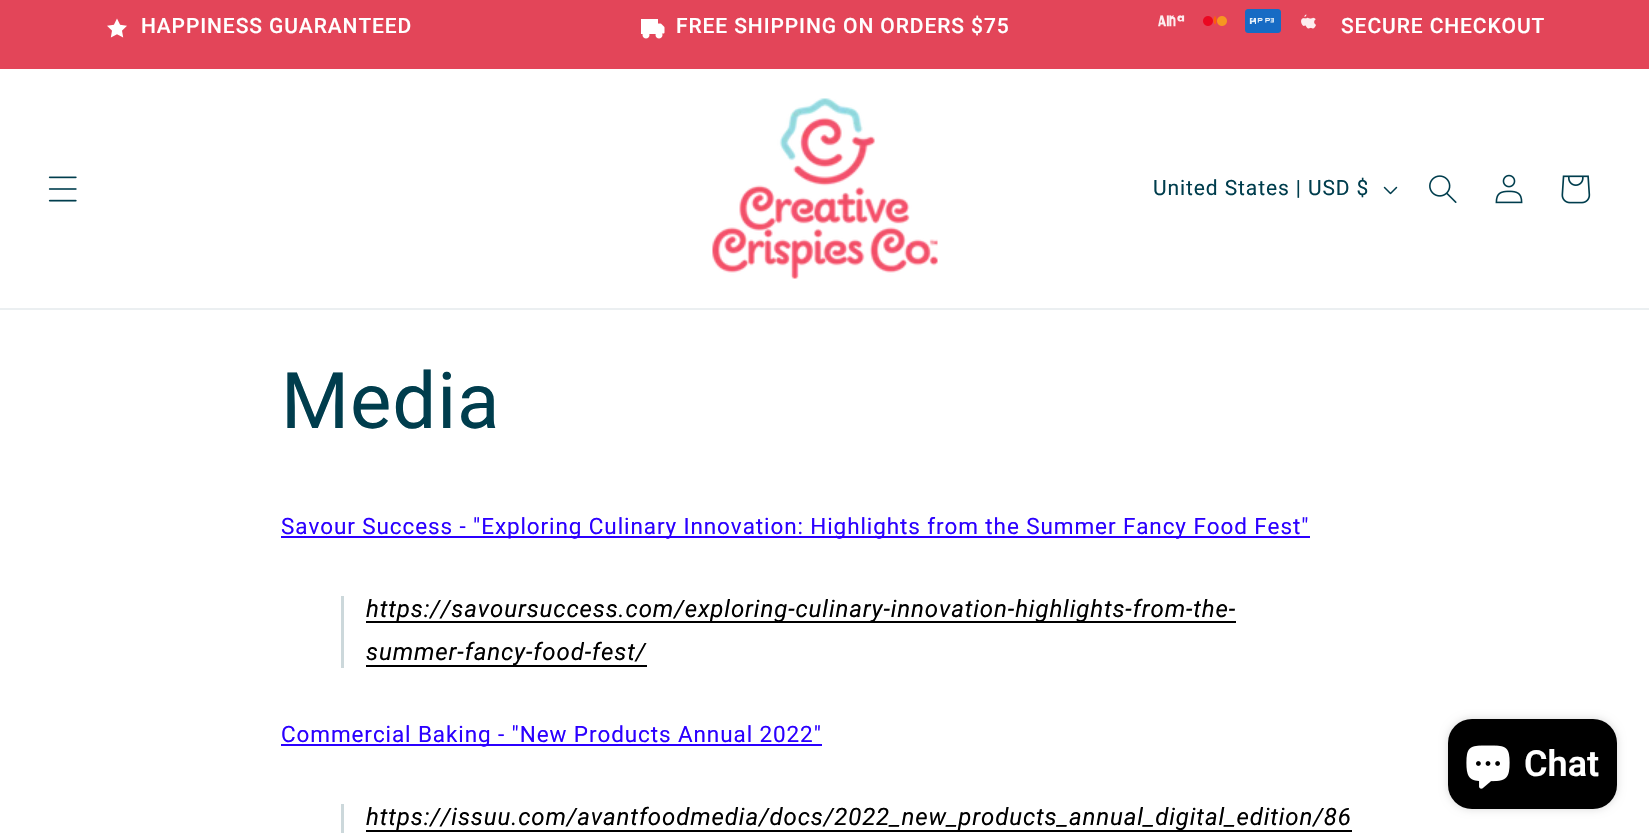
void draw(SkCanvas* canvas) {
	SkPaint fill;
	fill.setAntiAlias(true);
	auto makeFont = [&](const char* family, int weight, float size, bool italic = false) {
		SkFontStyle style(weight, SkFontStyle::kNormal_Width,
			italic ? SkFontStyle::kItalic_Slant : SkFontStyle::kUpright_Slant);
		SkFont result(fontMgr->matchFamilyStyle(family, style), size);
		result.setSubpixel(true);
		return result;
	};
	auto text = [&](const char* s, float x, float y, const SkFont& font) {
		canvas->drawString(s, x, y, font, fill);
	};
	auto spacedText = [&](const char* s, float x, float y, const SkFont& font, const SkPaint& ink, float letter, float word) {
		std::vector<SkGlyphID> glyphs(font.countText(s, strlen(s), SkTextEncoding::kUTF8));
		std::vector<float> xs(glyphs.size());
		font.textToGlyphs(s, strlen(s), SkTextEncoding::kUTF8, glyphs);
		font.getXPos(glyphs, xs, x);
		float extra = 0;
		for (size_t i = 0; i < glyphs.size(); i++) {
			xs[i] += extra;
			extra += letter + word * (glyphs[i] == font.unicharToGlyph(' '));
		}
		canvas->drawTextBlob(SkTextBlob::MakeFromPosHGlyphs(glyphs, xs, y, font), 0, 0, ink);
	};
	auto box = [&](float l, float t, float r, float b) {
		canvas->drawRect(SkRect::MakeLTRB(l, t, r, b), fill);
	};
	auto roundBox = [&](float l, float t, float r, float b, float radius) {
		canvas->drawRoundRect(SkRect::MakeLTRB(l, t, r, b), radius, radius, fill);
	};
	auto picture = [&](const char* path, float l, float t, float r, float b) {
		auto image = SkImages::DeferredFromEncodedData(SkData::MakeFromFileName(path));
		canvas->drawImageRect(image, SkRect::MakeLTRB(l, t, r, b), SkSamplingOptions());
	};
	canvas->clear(0xFFFFFFFF);
	fill.setColor(0xFFE34559);
	box(0, 0, 1649, 69);
	picture("image0.png", 107, 18, 127, 38);
	picture("image1.png", 641, 19, 665, 39);
	picture("image2.png", 1158, 15, 1185, 27);
	picture("image3.png", 1203, 16, 1227, 26);
	picture("image4.png", 1245, 9, 1281, 33);
	picture("image5.png", 1301, 14, 1316, 29);
	fill.setColor(0xFFEBEFF1);
	box(0, 308, 1649, 310);
	picture("image6.png", 48, 176, 77, 202);
	picture("image7.png", 712, 98, 938, 279);
	picture("image8.png", 1383, 186, 1398, 195);
	picture("image9.png", 1429, 175, 1457, 203);
	picture("image10.png", 1495, 174, 1523, 204);
	picture("image11.png", 1561, 175, 1591, 204);
	fill.setColor(0xFF2B00FF);
	box(281, 536, 1310, 538);
	fill.setColor(0xFFCCD8DB);
	box(341, 596, 344, 668);
	fill.setColor(0xFF000000);
	box(366, 621, 1236, 623);
	box(366, 665, 647, 667);
	fill.setColor(0xFF2B00FF);
	box(281, 744, 822, 746);
	fill.setColor(0xFFCCD8DB);
	box(341, 804, 344, 833);
	fill.setColor(0xFF000000);
	box(366, 830, 1352, 832);
	fill.setColor(0x26000000);
	fill.setMaskFilter(SkMaskFilter::MakeBlur(kNormal_SkBlurStyle, 4));
	canvas->drawRoundRect(SkRect::MakeLTRB(1448, 719, 1617, 809), 24, 24, fill);
	fill.setMaskFilter(nullptr);
	fill.setColor(0xFF000000);
	roundBox(1448, 719, 1617, 809, 24);
	picture("image12.png", 1466, 745, 1510, 789);
	auto font1 = makeFont("Roboto", 500, 21);
	fill.setColor(0xFFFFFFFF);
	spacedText("HAPPINESS GUARANTEED", 141, 33, font1, fill, 0.9f, 0);
	spacedText("FREE SHIPPING ON ORDERS $75", 676, 33, font1, fill, 0.9f, 0);
	spacedText("SECURE CHECKOUT", 1341, 33, font1, fill, 0.9f, 0);
	auto font2 = makeFont("Roboto", 400, 21);
	fill.setColor(0xFF003D4D);
	spacedText("United States | USD $", 1153, 195, font2, fill, 0.9f, 0);
	auto font3 = makeFont("Roboto", 400, 78);
	spacedText("Media", 281, 428, font3, fill, 0.9f, 0);
	auto font4 = makeFont("Roboto", 400, 22.5f);
	fill.setColor(0xFF2B00FF);
	spacedText("Savour Success - \"Exploring Culinary Innovation: Highlights from the Summer Fancy Food Fest\"", 281, 534, font4, fill, 0.9f, 0);
	auto font5 = makeFont("Roboto", 400, 24, true);
	fill.setColor(0xFF000000);
	spacedText("https://savoursuccess.com/exploring-culinary-innovation-highlights-from-the-", 366, 617, font5, fill, 0.9f, 0);
	spacedText("summer-fancy-food-fest/", 366, 660, font5, fill, 0.9f, 0);
	fill.setColor(0xFF2B00FF);
	spacedText("Commercial Baking - \"New Products Annual 2022\"", 281, 742, font4, fill, 0.9f, 0);
	fill.setColor(0xFF000000);
	spacedText("https://issuu.com/avantfoodmedia/docs/2022_new_products_annual_digital_edition/86", 366, 825, font5, fill, 0.9f, 0);
	auto font6 = makeFont("Roboto", 600, 36);
	fill.setColor(0xFFFFFFFF);
	text("Chat", 1524, 776, font6);
}
